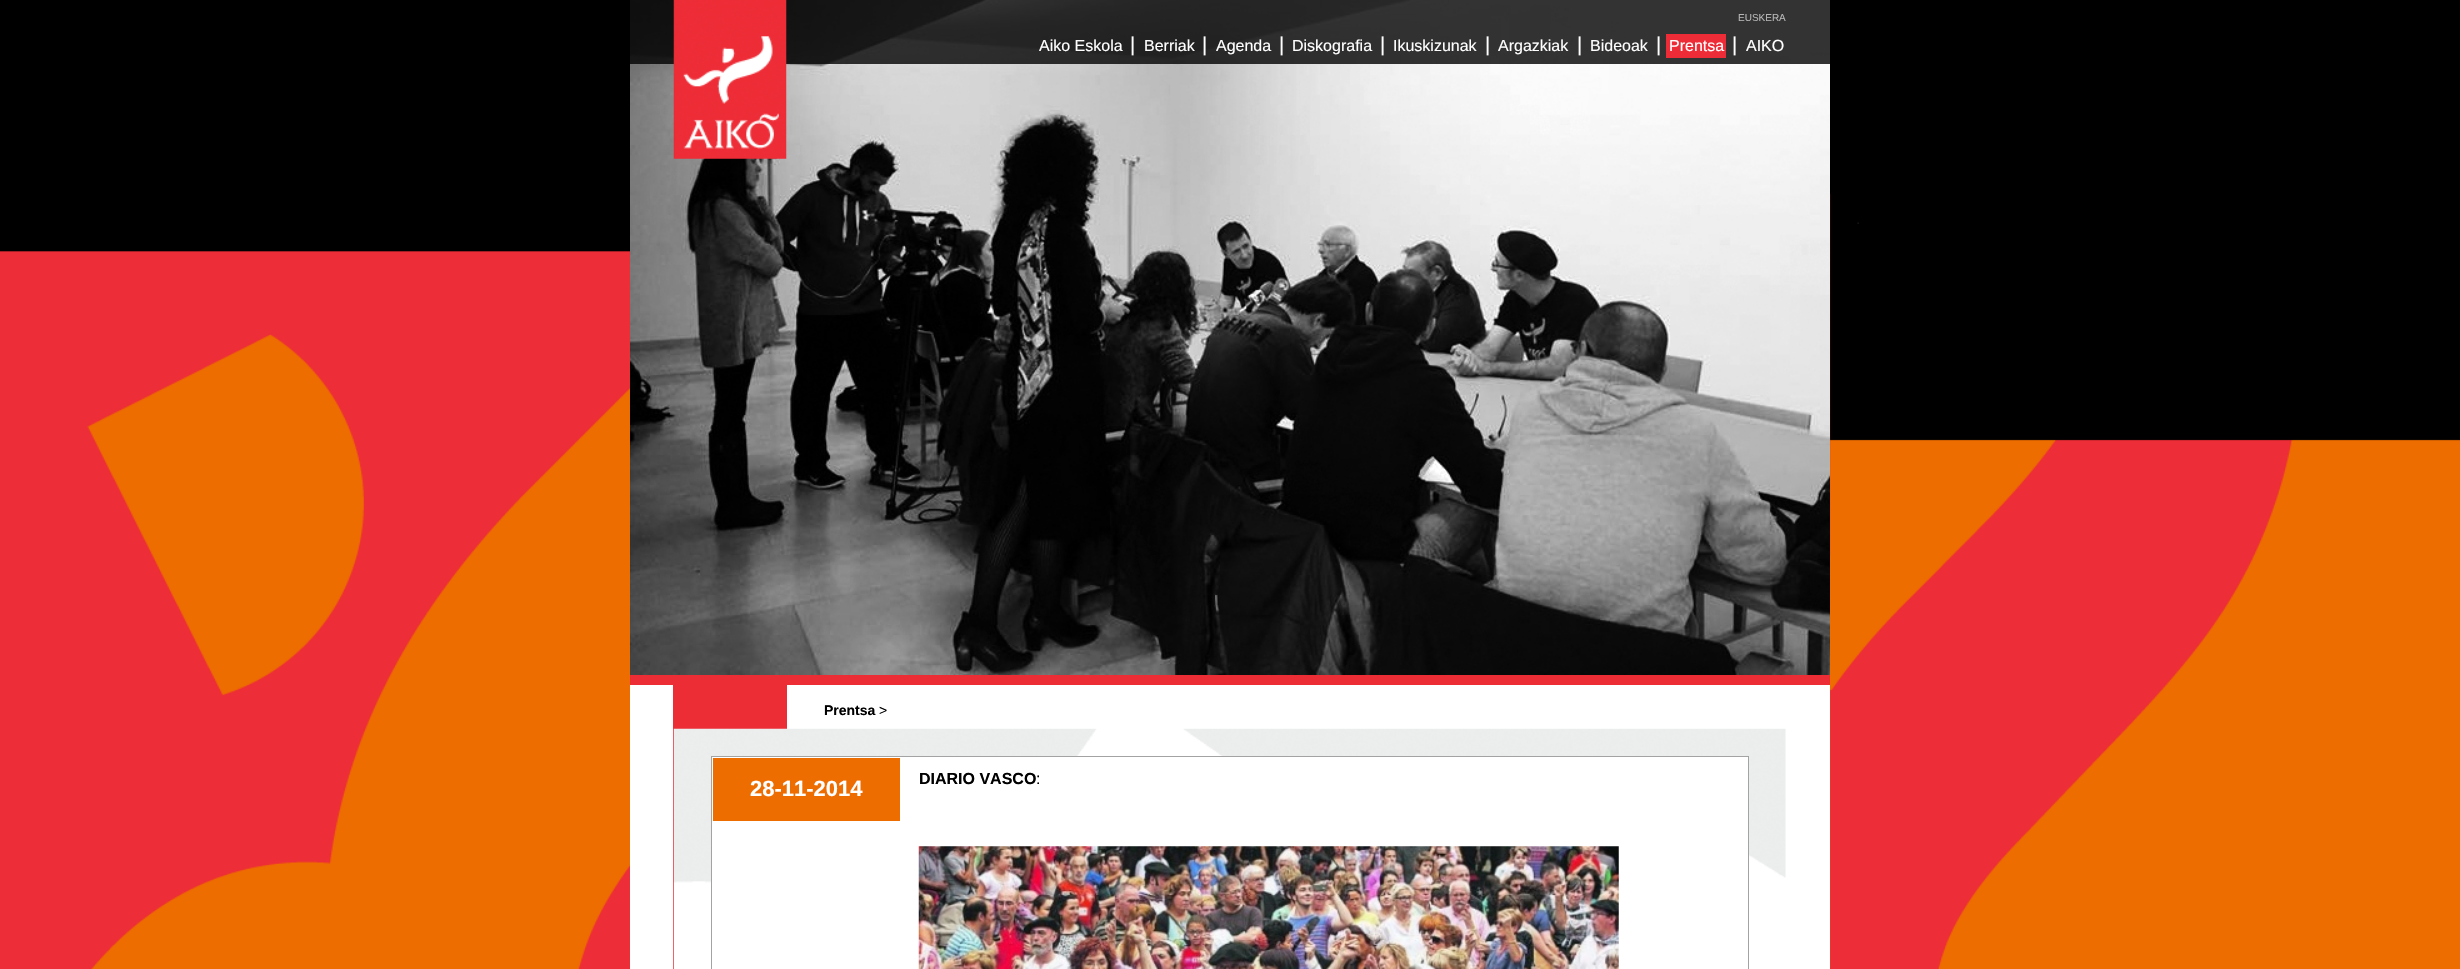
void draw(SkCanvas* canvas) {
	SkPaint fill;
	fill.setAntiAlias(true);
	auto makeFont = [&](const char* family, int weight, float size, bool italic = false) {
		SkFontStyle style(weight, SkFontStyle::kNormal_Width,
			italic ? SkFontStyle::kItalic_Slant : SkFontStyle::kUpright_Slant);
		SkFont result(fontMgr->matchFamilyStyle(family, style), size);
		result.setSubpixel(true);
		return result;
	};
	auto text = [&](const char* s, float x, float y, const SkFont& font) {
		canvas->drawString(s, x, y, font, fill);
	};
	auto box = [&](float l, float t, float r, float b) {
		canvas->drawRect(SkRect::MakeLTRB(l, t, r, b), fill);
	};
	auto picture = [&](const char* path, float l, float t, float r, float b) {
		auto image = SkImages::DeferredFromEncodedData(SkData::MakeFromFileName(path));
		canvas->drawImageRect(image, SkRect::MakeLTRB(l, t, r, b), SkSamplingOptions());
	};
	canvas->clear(0xFFFFFFFF);
	picture("image0.png", 0, 0, 2460, 969);
	picture("image1.png", 630, 0, 1830, 675);
	fill.setColor(0xCC000000);
	box(630, 0, 1830, 64);
	picture("image2.png", 673, 0, 787, 159);
	fill.setColor(0xFFED2C37);
	box(1666, 34, 1726, 58);
	fill.setColor(0xFFFFFFFF);
	box(630, 685, 1830, 969);
	fill.setColor(0xFFED2D36);
	box(673, 685, 787, 969);
	box(630, 675, 1830, 685);
	picture("image3.png", 673, 728, 1786, 969);
	fill.setColor(0xFFFFFFFF);
	canvas->drawRect(SkRect::MakeLTRB(711.5f, 756.5f, 1748.5f, 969.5f), fill);
	fill.setStyle(SkPaint::kStroke_Style);
	fill.setStrokeWidth(1);
	fill.setColor(0xFFA3A3A3);
	canvas->drawRect(SkRect::MakeLTRB(711.5f, 756.5f, 1748.5f, 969.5f), fill);
	fill.setStyle(SkPaint::kFill_Style);
	fill.setColor(0xFFED6D00);
	box(713, 758, 900, 821);
	picture("image4.png", 918, 846, 1619, 969);
	auto font1 = makeFont("Liberation Sans", 400, 10);
	fill.setColor(0xFFB6B6B6);
	text("EUSKERA", 1738, 21, font1);
	auto font2 = makeFont("Liberation Sans", 400, 16);
	fill.setColor(0xFFFFFFFF);
	text("Aiko Eskola", 1039, 51, font2);
	auto font3 = makeFont("Liberation Sans", 400, 20);
	text("|", 1130, 51, font3);
	text("Berriak", 1144, 51, font2);
	text("|", 1202, 51, font3);
	text("Agenda", 1216, 51, font2);
	text("|", 1279, 51, font3);
	text("Diskografia", 1292, 51, font2);
	text("|", 1380, 51, font3);
	text("Ikuskizunak", 1393, 51, font2);
	text("|", 1485, 51, font3);
	text("Argazkiak", 1498, 51, font2);
	text("|", 1577, 51, font3);
	text("Bideoak", 1590, 51, font2);
	text("|", 1656, 51, font3);
	text("Prentsa", 1669, 51, font2);
	text("|", 1732, 51, font3);
	text("AIKO", 1746, 51, font2);
	auto font4 = makeFont("Liberation Sans", 700, 14);
	fill.setColor(0xFF000000);
	text("Prentsa", 824, 715, font4);
	auto font5 = makeFont("Liberation Sans", 400, 14);
	text(">", 879, 715, font5);
	auto font6 = makeFont("Liberation Sans", 700, 16);
	text("DIARIO VASCO", 919, 784, font6);
	text(":", 1036, 784, font2);
	auto font7 = makeFont("Liberation Sans", 700, 22);
	fill.setColor(0xFFFFFFFF);
	text("28-11-2014", 750, 796, font7);
}
